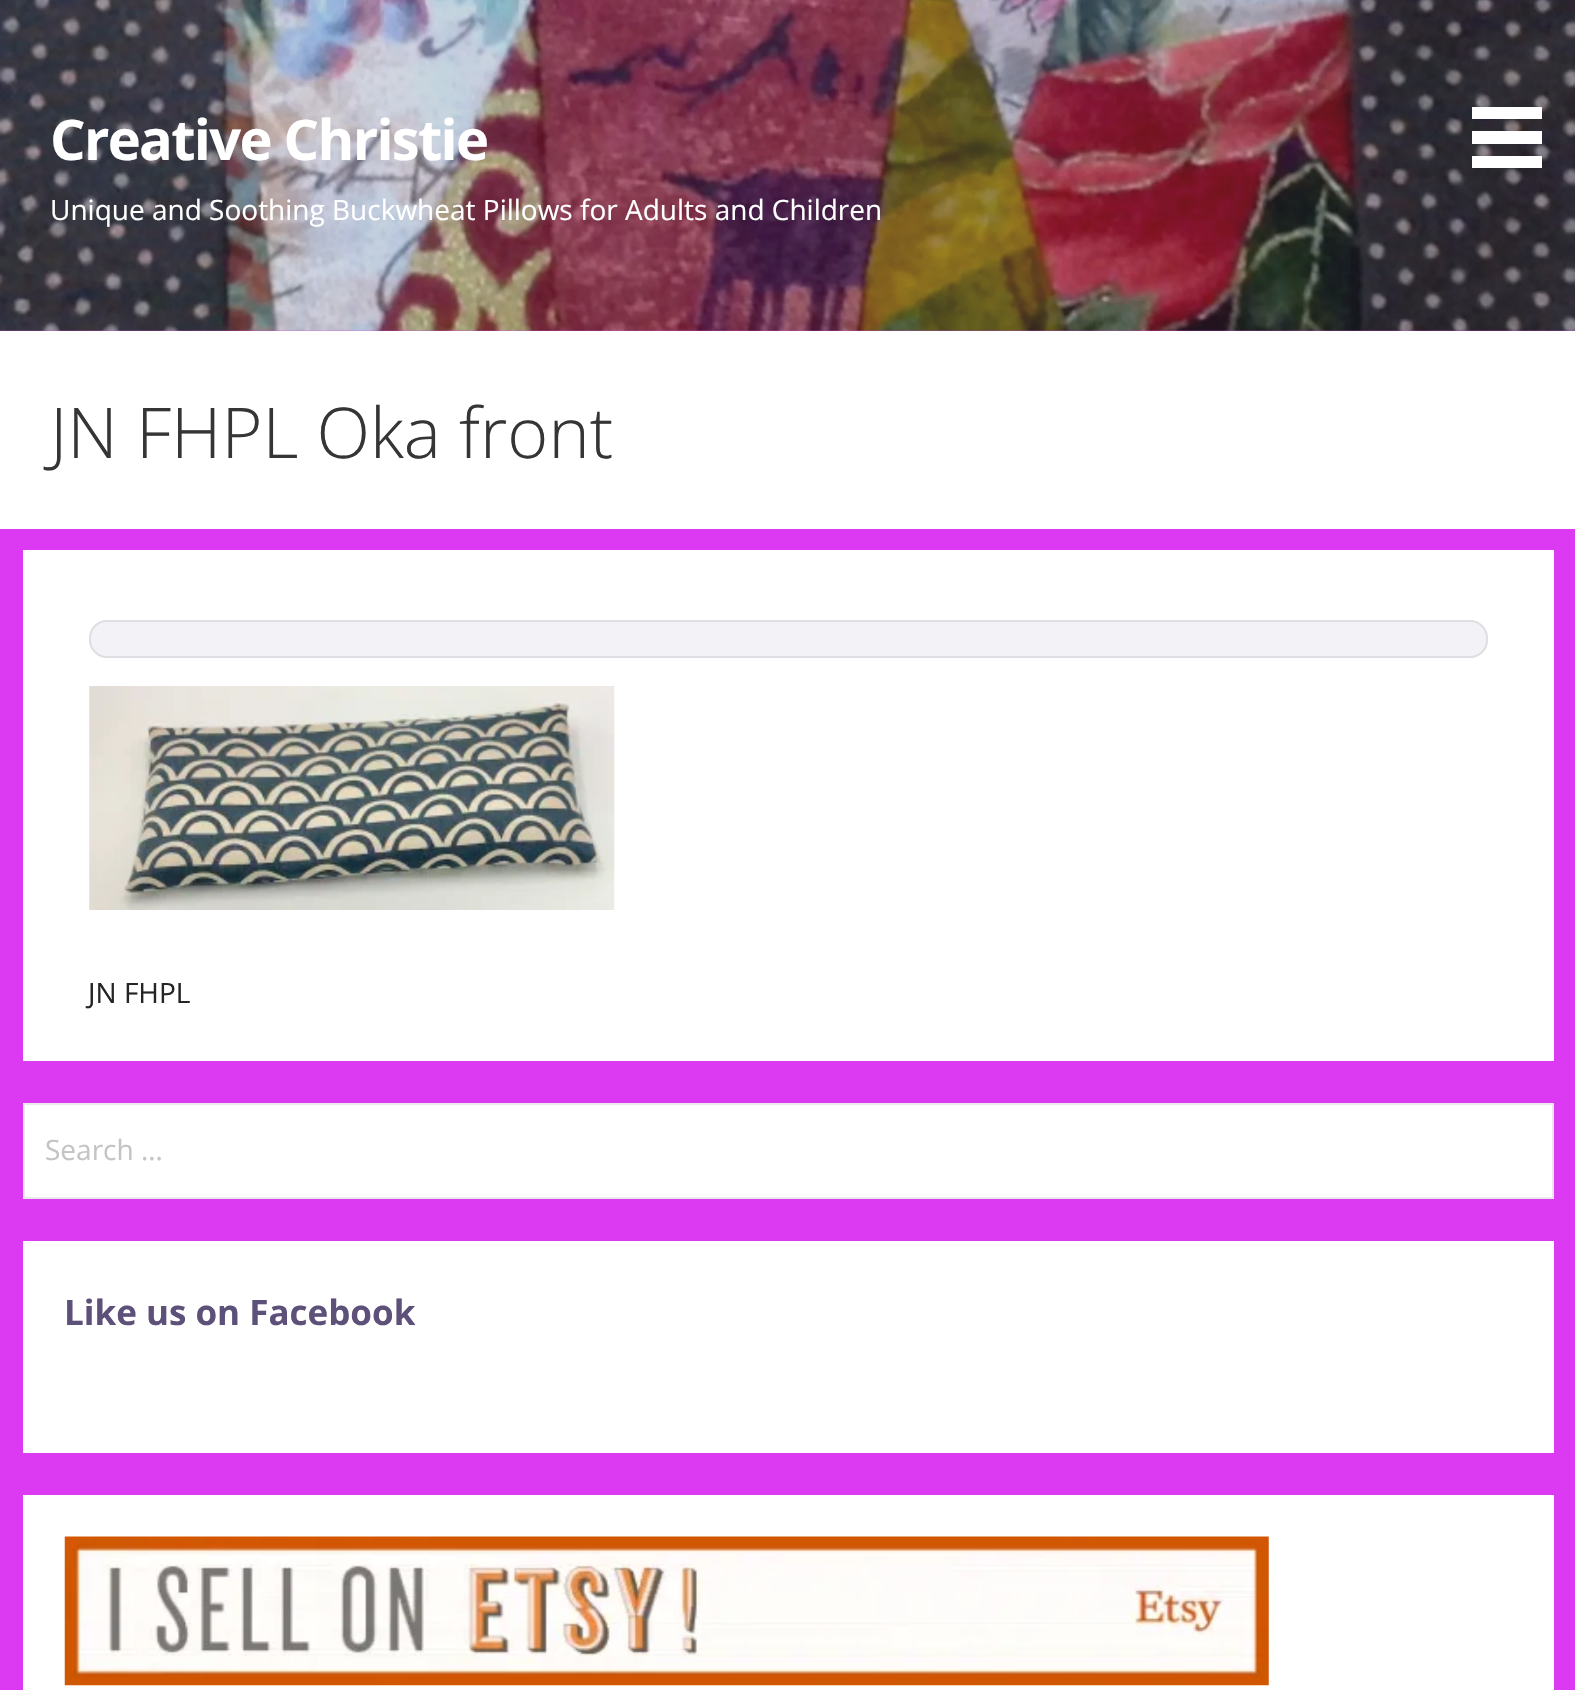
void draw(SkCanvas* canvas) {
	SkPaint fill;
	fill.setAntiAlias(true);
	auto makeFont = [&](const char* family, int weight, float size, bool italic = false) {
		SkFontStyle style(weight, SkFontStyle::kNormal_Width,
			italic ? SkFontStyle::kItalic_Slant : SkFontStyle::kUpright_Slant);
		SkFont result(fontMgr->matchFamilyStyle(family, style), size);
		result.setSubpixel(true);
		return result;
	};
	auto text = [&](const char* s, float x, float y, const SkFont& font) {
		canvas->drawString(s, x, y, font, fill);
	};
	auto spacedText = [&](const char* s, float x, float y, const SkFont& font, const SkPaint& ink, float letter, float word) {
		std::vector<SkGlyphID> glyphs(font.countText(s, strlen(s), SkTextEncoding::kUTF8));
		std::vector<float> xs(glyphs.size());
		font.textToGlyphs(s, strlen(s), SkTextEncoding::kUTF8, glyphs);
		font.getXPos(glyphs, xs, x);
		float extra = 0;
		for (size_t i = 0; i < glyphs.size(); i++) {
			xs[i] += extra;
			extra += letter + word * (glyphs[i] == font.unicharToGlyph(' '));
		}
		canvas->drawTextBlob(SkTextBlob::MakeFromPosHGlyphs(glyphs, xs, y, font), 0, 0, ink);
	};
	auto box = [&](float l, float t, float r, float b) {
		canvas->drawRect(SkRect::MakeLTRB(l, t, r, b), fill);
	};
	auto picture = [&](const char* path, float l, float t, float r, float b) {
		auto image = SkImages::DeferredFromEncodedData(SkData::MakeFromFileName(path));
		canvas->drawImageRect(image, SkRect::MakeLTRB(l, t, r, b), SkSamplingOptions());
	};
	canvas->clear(0xFFDC3AF2);
	picture("image0.png", 0, 0, 1575, 331);
	fill.setColor(0xFFFFFFFF);
	box(1472, 107, 1542, 119);
	box(1472, 131, 1542, 144);
	box(1472, 156, 1542, 168);
	box(0, 331, 1575, 529);
	box(23, 550, 1554, 1061);
	fill.setColor(0xFFF3F3F7);
	canvas->drawRoundRect(SkRect::MakeLTRB(90, 621, 1487, 657), 17, 17, fill);
	fill.setStyle(SkPaint::kStroke_Style);
	fill.setStrokeWidth(2);
	fill.setColor(0xFFDEDEE3);
	canvas->drawRoundRect(SkRect::MakeLTRB(90, 621, 1487, 657), 17, 17, fill);
	picture("image1.png", 89, 686, 615, 910);
	fill.setStyle(SkPaint::kFill_Style);
	fill.setColor(0xFFFFFFFF);
	canvas->drawRect(SkRect::MakeLTRB(24, 1104, 1553, 1198), fill);
	fill.setStyle(SkPaint::kStroke_Style);
	fill.setColor(0xFFE9E9E9);
	canvas->drawRect(SkRect::MakeLTRB(24, 1104, 1553, 1198), fill);
	fill.setStyle(SkPaint::kFill_Style);
	fill.setColor(0xFFFFFFFF);
	box(23, 1241, 1554, 1453);
	box(23, 1495, 1554, 1690);
	picture("image2.png", 64, 1536, 1269, 1686);
	auto font1 = makeFont("Open Sans", 700, 56);
	spacedText("Creative Christie", 50, 160, font1, fill, -1.7f, 0);
	auto font2 = makeFont("Open Sans", 400, 28);
	text("Unique and Soothing Buckwheat Pillows for Adults and Children", 50, 220, font2);
	auto font3 = makeFont("Open Sans", 300, 70);
	fill.setColor(0xFF353535);
	text("JN FHPL Oka front", 50, 458, font3);
	fill.setColor(0xFF252525);
	text("JN FHPL", 88, 1003, font2);
	fill.setColor(0xFFC4C4C4);
	text("Search …", 45, 1160, font2);
	auto font4 = makeFont("Open Sans", 700, 35);
	fill.setColor(0xFF5D5179);
	text("Like us on Facebook", 64, 1325, font4);
}
